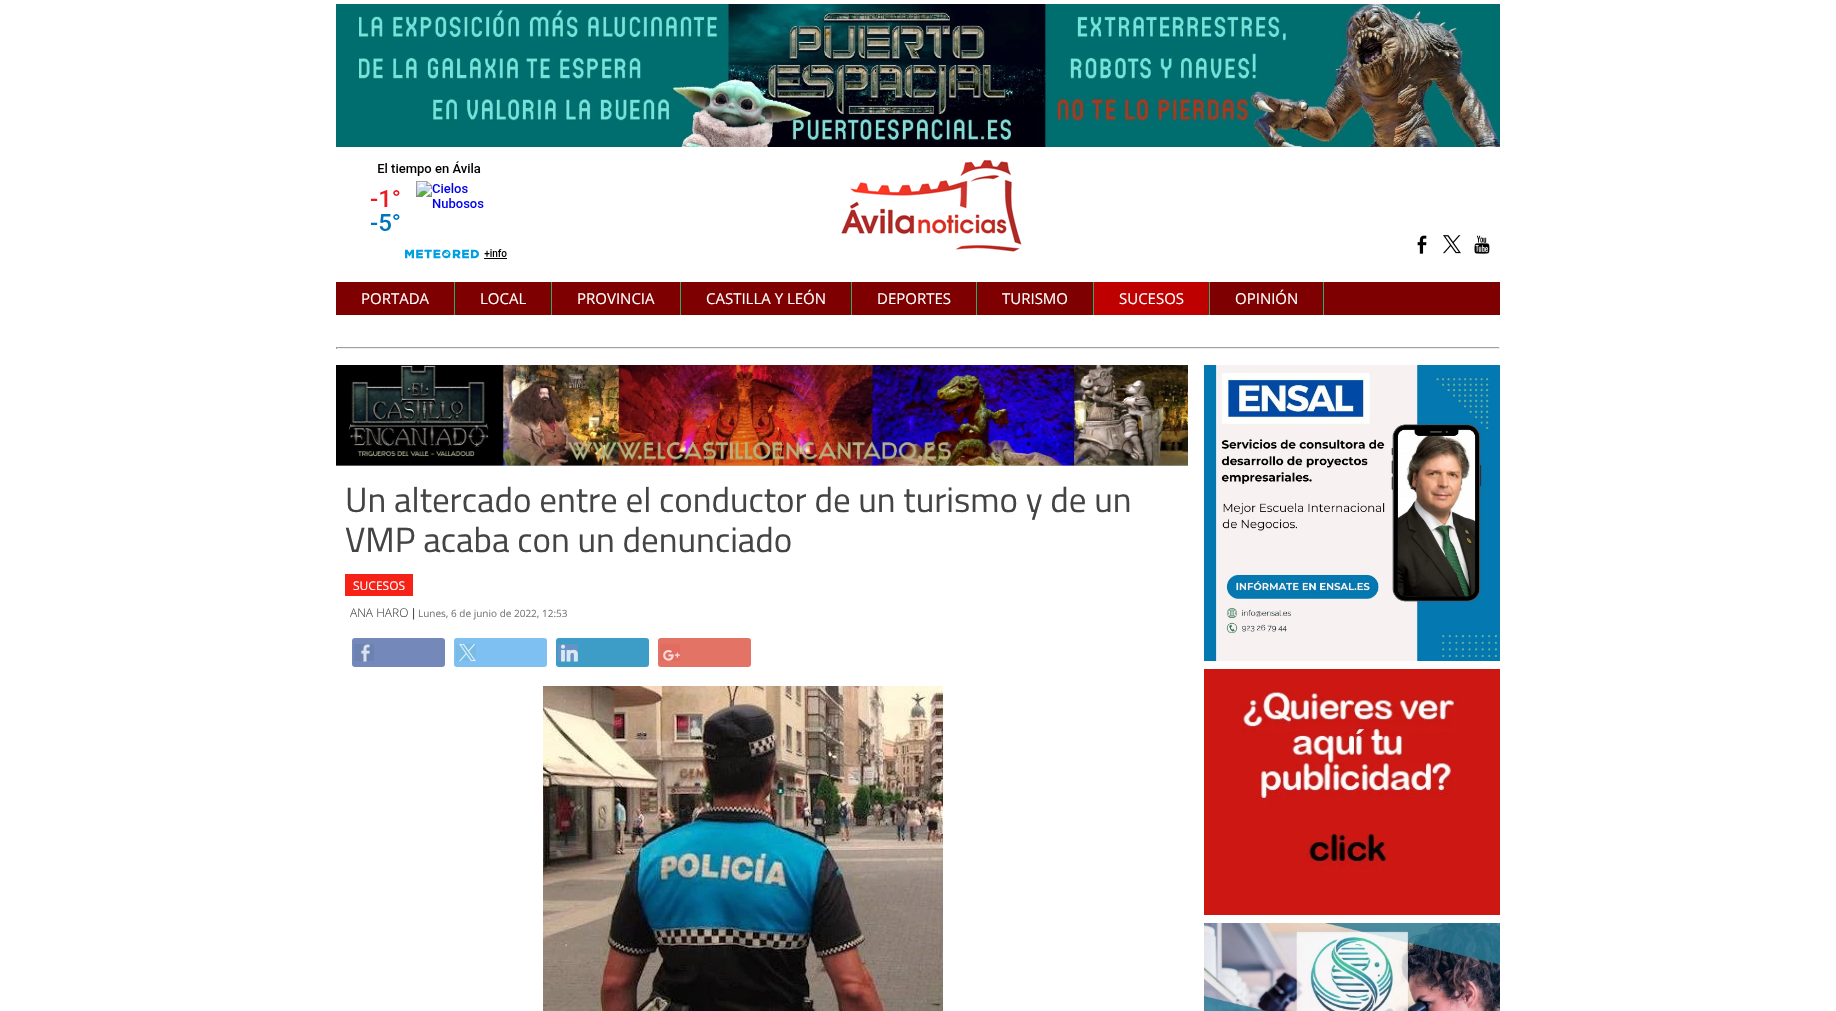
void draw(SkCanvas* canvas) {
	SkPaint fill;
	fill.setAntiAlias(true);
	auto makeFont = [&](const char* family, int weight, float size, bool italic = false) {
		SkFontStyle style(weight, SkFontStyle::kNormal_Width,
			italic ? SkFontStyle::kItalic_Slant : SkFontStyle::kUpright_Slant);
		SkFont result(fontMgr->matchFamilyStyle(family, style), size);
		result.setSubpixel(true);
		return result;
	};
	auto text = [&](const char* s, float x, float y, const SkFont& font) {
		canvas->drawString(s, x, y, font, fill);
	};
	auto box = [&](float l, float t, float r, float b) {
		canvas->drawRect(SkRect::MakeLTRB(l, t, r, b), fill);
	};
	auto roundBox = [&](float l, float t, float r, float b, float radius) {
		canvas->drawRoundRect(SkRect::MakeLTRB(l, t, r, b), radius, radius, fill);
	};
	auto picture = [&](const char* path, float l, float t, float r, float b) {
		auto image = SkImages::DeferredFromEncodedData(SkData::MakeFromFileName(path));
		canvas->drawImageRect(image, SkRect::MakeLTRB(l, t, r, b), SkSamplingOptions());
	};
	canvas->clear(0xFFFFFFFF);
	picture("image0.png", 336, 4, 1500, 147);
	picture("image1.png", 370, 161, 507, 259);
	picture("image2.png", 841, 160, 1022, 252);
	picture("image3.png", 1417, 235, 1427, 254);
	picture("image4.png", 1443, 235, 1461, 254);
	picture("image5.png", 1474, 235, 1490, 254);
	fill.setColor(0xFF7F0000);
	box(336, 282, 1500, 315);
	fill.setColor(0xFF2EAA70);
	box(454, 282, 455, 315);
	box(551, 282, 552, 315);
	box(680, 282, 681, 315);
	box(851, 282, 852, 315);
	box(976, 282, 977, 315);
	box(1093, 282, 1094, 315);
	fill.setColor(0xFFBF0000);
	box(1094, 282, 1209, 315);
	fill.setColor(0xFF2EAA70);
	box(1209, 282, 1210, 315);
	box(1323, 282, 1324, 315);
	fill.setColor(0xFF9F9F9F);
	box(336, 347, 1500, 348);
	fill.setColor(0xFFEEEEEE);
	box(1499, 347, 1500, 349);
	box(336, 348, 1500, 349);
	fill.setColor(0xFF9F9F9F);
	box(336, 347, 337, 349);
	picture("image6.png", 336, 365, 1188, 466);
	fill.setColor(0xFFF62217);
	box(345, 574, 413, 596);
	fill.setColor(0xFF7488B9);
	roundBox(352, 638, 445, 667, 3);
	fill.setColor(0xFF6C82B1);
	box(354, 644, 374, 661);
	picture("image7.png", 361, 644, 370, 662);
	fill.setColor(0xFF7EC0F2);
	roundBox(454, 638, 547, 667, 3);
	fill.setColor(0xFF78BCE6);
	box(456, 644, 476, 661);
	picture("image8.png", 459, 644, 476, 662);
	fill.setColor(0xFF3E9DC6);
	roundBox(556, 638, 649, 667, 3);
	fill.setColor(0xFF6493C8);
	box(558, 644, 578, 661);
	picture("image9.png", 561, 644, 578, 662);
	fill.setColor(0xFFE37365);
	roundBox(658, 638, 751, 667, 3);
	fill.setColor(0xFFE26C5F);
	box(660, 644, 680, 661);
	picture("image10.png", 663, 650, 680, 661);
	picture("image11.png", 543, 686, 943, 1011);
	picture("image12.png", 1204, 365, 1500, 661);
	picture("image13.png", 1204, 669, 1500, 915);
	picture("image14.png", 1204, 923, 1500, 1011);
	auto font1 = makeFont("Open Sans", 400, 15);
	fill.setColor(0xFFFFFFFF);
	text("PORTADA", 361, 304, font1);
	text("LOCAL", 480, 304, font1);
	text("PROVINCIA", 577, 304, font1);
	text("CASTILLA Y LEÓN", 706, 304, font1);
	text("DEPORTES", 877, 304, font1);
	text("TURISMO", 1002, 304, font1);
	text("SUCESOS", 1119, 304, font1);
	text("OPINIÓN", 1235, 304, font1);
	auto font2 = makeFont("Titillium Web", 400, 35);
	fill.setColor(0xFF444444);
	text("Un altercado entre el conductor de un turismo y de un", 345, 512, font2);
	text("VMP acaba con un denunciado", 345, 552, font2);
	auto font3 = makeFont("Open Sans", 400, 12);
	fill.setColor(0xFFFFFFFF);
	text("SUCESOS", 353, 590, font3);
	auto font4 = makeFont("Open Sans", 300, 12);
	fill.setColor(0xFF444444);
	text("ANA HARO", 350, 617, font4);
	auto font5 = makeFont("Liberation Sans", 400, 12);
	text("|", 412, 617, font5);
	auto font6 = makeFont("Open Sans", 400, 10);
	fill.setColor(0xFF787878);
	text("Lunes, 6 de junio de 2022, 12:53", 418, 617, font6);
}
